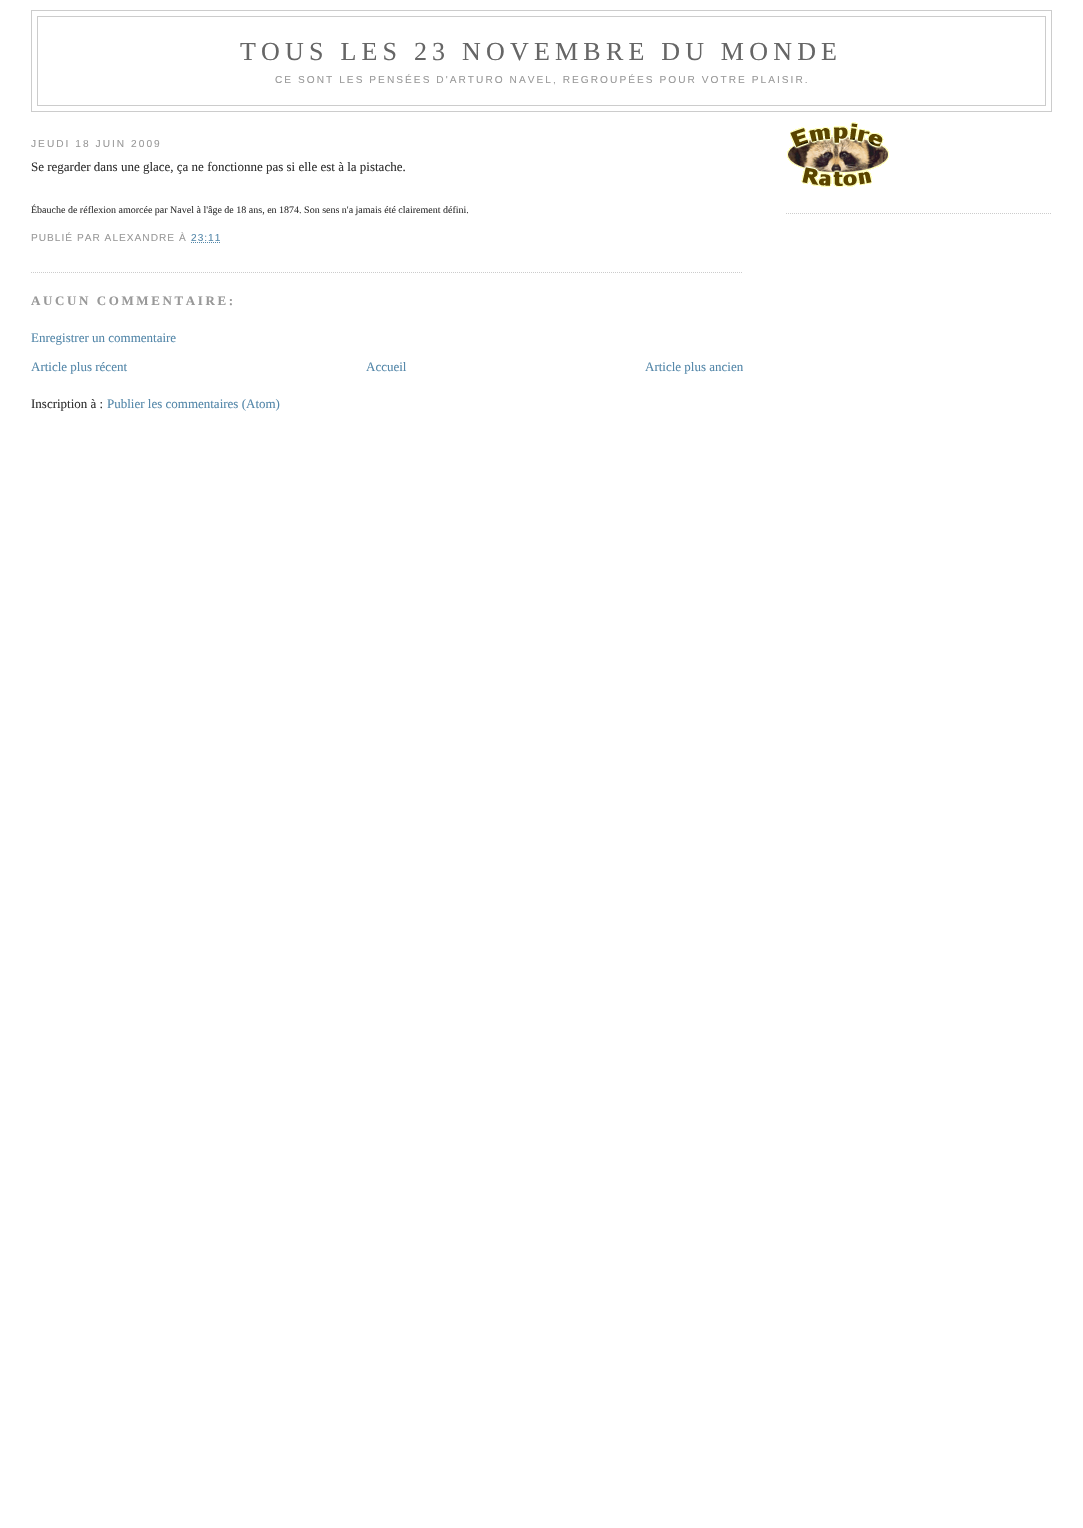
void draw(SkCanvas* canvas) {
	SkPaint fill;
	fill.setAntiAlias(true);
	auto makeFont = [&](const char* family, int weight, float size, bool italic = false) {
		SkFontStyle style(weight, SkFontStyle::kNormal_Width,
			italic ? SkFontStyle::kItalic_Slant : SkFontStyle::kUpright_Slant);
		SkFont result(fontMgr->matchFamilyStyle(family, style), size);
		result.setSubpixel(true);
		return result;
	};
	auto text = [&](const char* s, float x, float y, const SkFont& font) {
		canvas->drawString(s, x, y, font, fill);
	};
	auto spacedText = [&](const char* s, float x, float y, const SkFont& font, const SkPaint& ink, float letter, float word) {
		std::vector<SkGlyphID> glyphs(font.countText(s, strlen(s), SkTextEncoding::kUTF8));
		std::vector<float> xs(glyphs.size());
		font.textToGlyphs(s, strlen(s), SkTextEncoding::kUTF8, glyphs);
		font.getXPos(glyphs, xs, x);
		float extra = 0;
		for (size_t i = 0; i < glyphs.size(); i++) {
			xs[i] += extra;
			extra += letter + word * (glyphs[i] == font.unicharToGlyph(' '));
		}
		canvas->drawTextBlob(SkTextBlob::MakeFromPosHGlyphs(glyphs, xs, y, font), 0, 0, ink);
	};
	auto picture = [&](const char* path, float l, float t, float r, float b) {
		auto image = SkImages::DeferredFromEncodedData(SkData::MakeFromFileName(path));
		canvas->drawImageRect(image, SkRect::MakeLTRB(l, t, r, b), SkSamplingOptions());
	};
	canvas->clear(0xFFFFFFFF);
	fill.setStyle(SkPaint::kStroke_Style);
	fill.setStrokeWidth(1);
	fill.setColor(0xFFCCCCCC);
	canvas->drawRect(SkRect::MakeLTRB(31.5f, 10.5f, 1051.5f, 111.5f), fill);
	canvas->drawRect(SkRect::MakeLTRB(37.5f, 16.5f, 1045.5f, 105.5f), fill);
	fill.setPathEffect(SkDashPathEffect::Make({{1, 1}}, 0));
	canvas->drawPath(SkPathBuilder().moveTo(31, 272.5f).lineTo(743, 272.5f).detach(), fill);
	fill.setPathEffect(nullptr);
	fill.setColor(0xFF5588AA);
	fill.setPathEffect(SkDashPathEffect::Make({{1, 1}}, 0));
	canvas->drawPath(SkPathBuilder().moveTo(191, 242.5f).lineTo(221, 242.5f).detach(), fill);
	fill.setPathEffect(nullptr);
	fill.setColor(0xFFCCCCCC);
	fill.setPathEffect(SkDashPathEffect::Make({{1, 1}}, 0));
	canvas->drawPath(SkPathBuilder().moveTo(786, 213.5f).lineTo(1052, 213.5f).detach(), fill);
	fill.setPathEffect(nullptr);
	picture("image0.png", 787, 122, 889, 187);
	auto font1 = makeFont("Liberation Serif", 400, 26);
	fill.setStyle(SkPaint::kFill_Style);
	fill.setColor(0xFF666666);
	spacedText("TOUS LES 23 NOVEMBRE DU MONDE", 240, 60, font1, fill, 5.2f, 0);
	auto font2 = makeFont("Liberation Sans", 400, 10.15f);
	fill.setColor(0xFF999999);
	spacedText("CE SONT LES PENSÉES D'ARTURO NAVEL, REGROUPÉES POUR VOTRE PLAISIR.", 275, 83, font2, fill, 2.03f, 0);
	spacedText("JEUDI 18 JUIN 2009", 31, 147, font2, fill, 2.03f, 0);
	auto font3 = makeFont("Liberation Serif", 400, 13);
	fill.setColor(0xFF333333);
	text("Se regarder dans une glace, ça ne fonctionne pas si elle est à la pistache.", 31, 171, font3);
	auto font4 = makeFont("Liberation Serif", 400, 10);
	text("Ébauche de réflexion amorcée par Navel à l'âge de 18 ans, en 1874. Son sens n'a jamais été clairement défini.", 31, 213, font4);
	fill.setColor(0xFF999999);
	spacedText("PUBLIÉ PAR ALEXANDRE À", 31, 241, font2, fill, 1, 0);
	fill.setColor(0xFF5588AA);
	spacedText("23:11", 191, 241, font2, fill, 1, 0);
	auto font5 = makeFont("Liberation Serif", 700, 13);
	fill.setColor(0xFF999999);
	spacedText("AUCUN COMMENTAIRE:", 31, 305, font5, fill, 2.6f, 0);
	fill.setColor(0xFF5588AA);
	text("Enregistrer un commentaire", 31, 342, font3);
	text("Article plus récent", 31, 371, font3);
	text("Accueil", 366, 371, font3);
	text("Article plus ancien", 645, 371, font3);
	fill.setColor(0xFF333333);
	text("Inscription à :", 31, 408, font3);
	fill.setColor(0xFF5588AA);
	text("Publier les commentaires (Atom)", 107, 408, font3);
}
